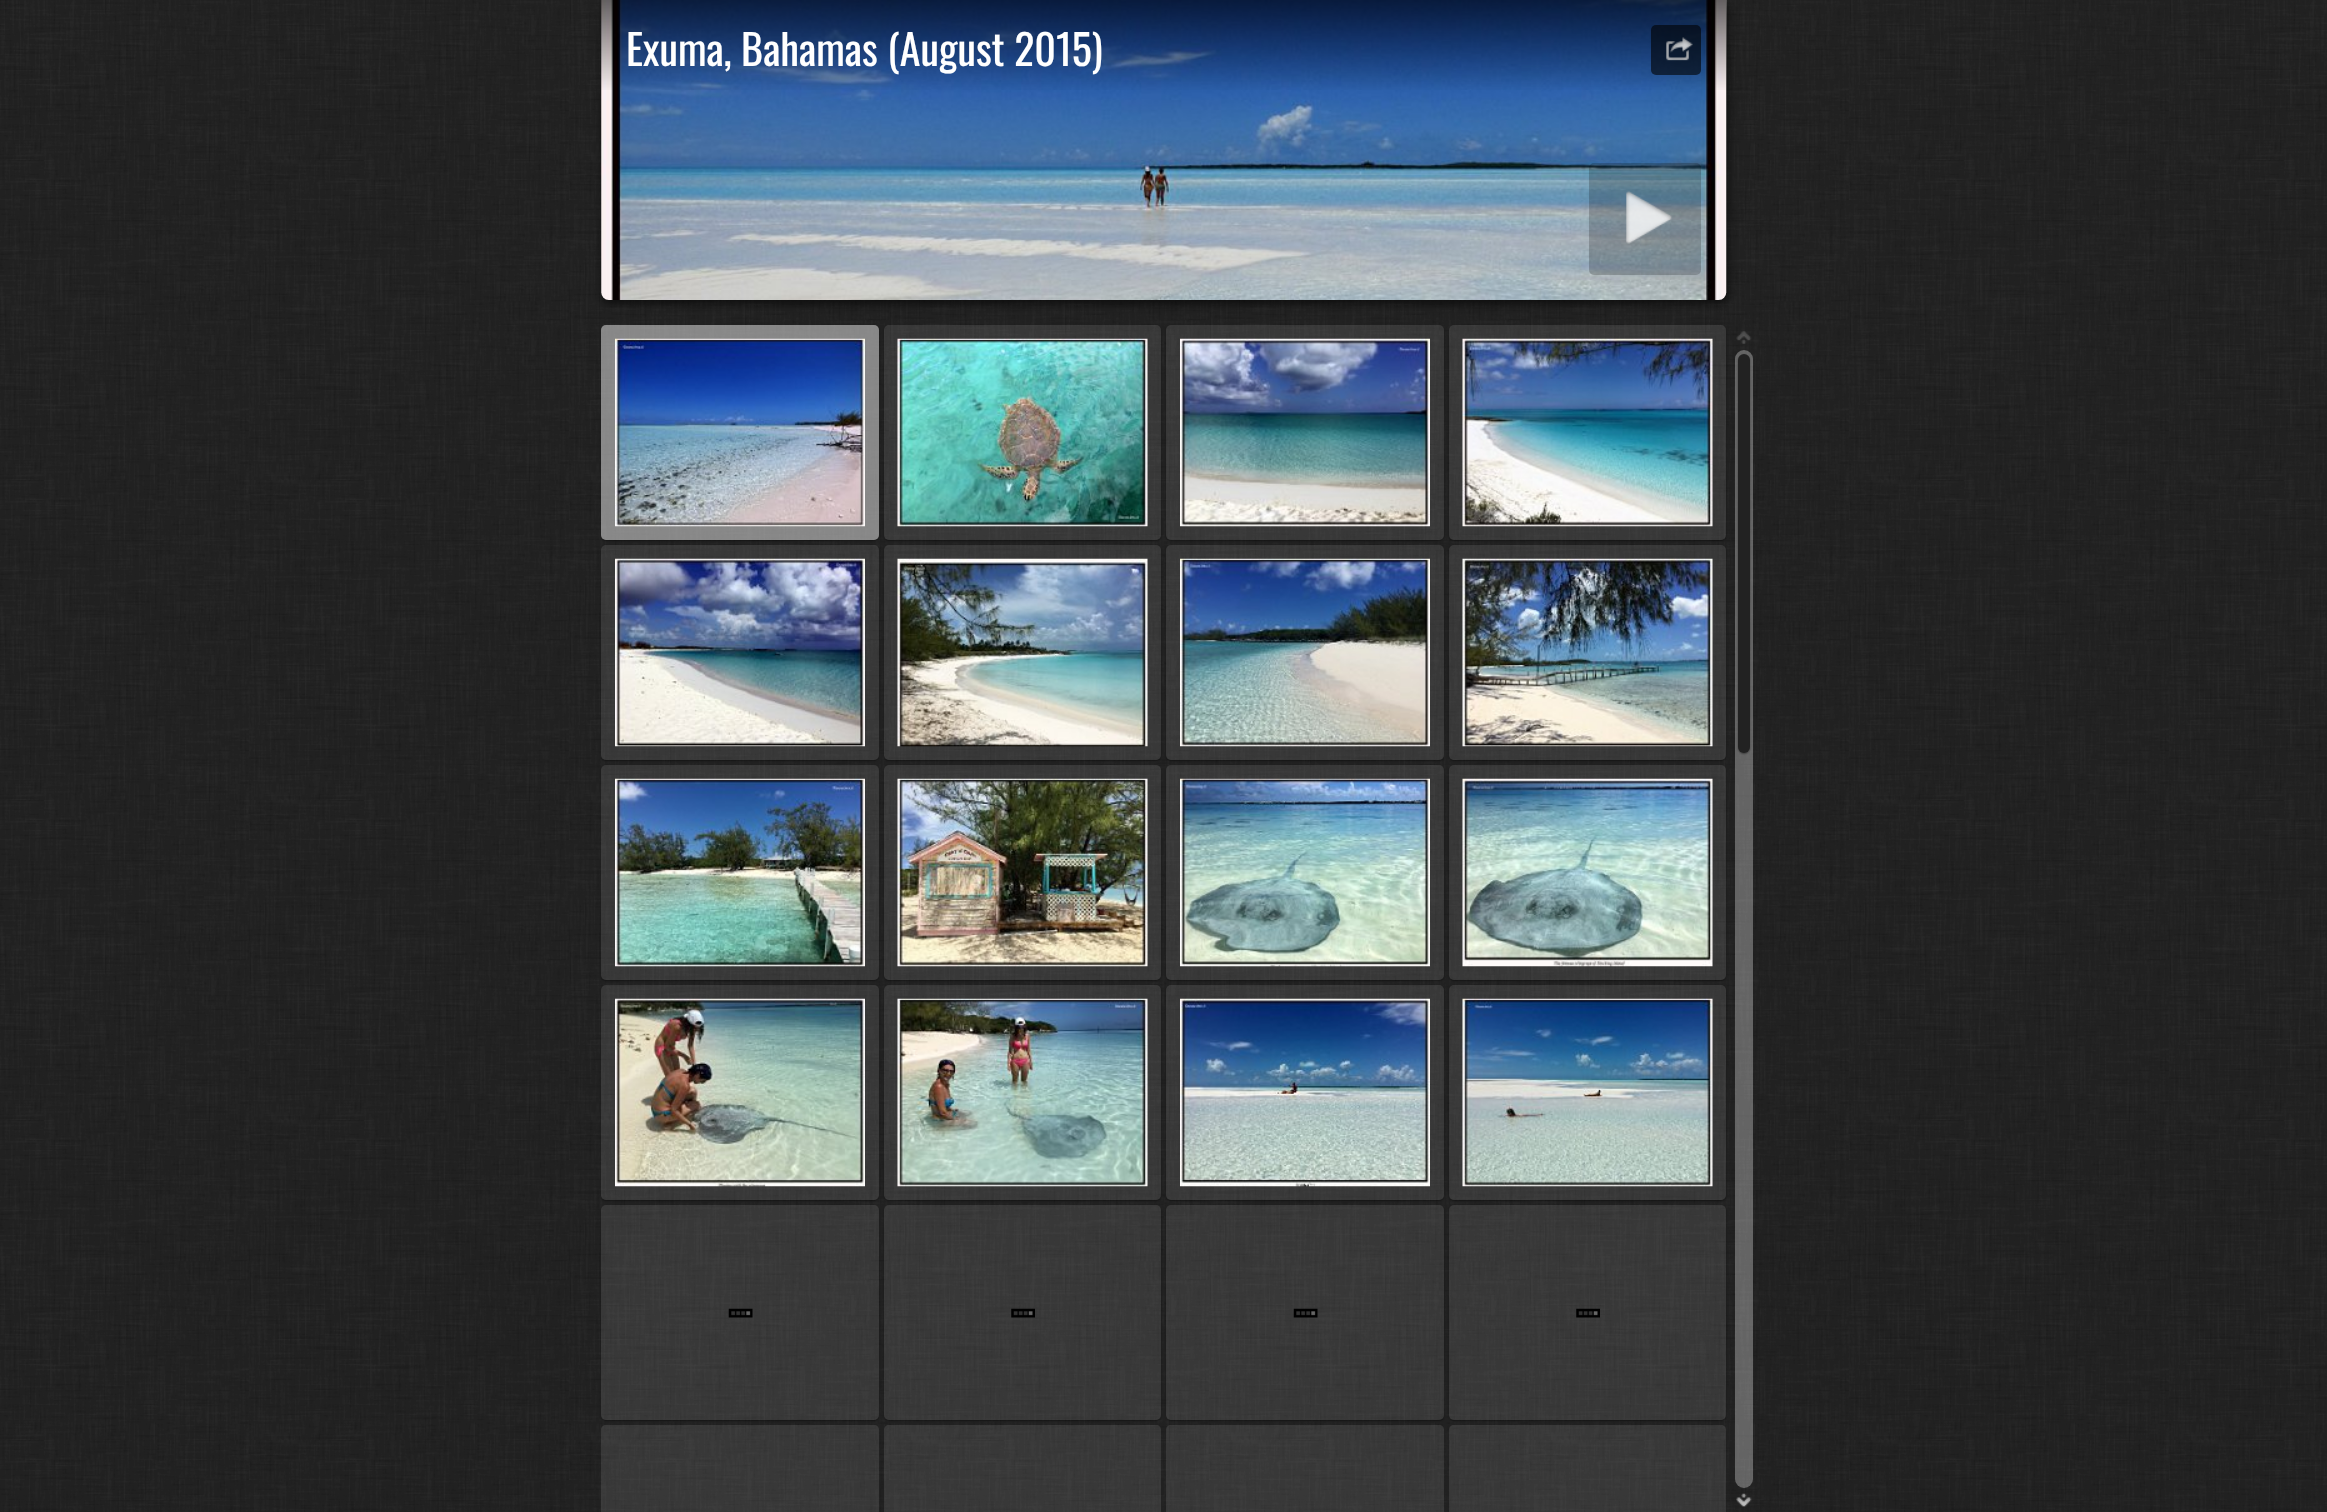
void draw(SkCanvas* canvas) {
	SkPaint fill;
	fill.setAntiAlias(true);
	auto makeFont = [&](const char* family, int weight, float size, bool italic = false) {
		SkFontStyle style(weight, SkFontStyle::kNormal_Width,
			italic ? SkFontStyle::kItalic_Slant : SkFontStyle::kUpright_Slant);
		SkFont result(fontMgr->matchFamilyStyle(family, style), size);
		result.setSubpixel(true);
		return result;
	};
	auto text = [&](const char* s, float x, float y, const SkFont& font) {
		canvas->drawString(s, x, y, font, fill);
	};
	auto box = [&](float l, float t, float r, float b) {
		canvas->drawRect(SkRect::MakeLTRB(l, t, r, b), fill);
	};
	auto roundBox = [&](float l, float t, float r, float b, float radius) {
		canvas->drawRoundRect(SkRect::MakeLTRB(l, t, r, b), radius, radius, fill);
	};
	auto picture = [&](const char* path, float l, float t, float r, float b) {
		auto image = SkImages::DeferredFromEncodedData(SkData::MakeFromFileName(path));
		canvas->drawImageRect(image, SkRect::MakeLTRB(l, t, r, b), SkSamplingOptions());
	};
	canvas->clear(0xFF222222);
	picture("image0.png", 0, 0, 2327, 1512);
	fill.setColor(0x99000000);
	fill.setMaskFilter(SkMaskFilter::MakeBlur(kNormal_SkBlurStyle, 5));
	canvas->drawRoundRect(SkRect::MakeLTRB(603, 4, 1728, 304), 8, 8, fill);
	fill.setMaskFilter(nullptr);
	fill.setColor(0x33000000);
	canvas->drawPath(SkPathBuilder().moveTo(601, 0).lineTo(1726, 0).lineTo(1726, 292).cubicTo(1726, 296.5f, 1722.5f, 300, 1718, 300).lineTo(609, 300).cubicTo(604.5f, 300, 601, 296.5f, 601, 292).close().detach(), fill);
	picture("image1.png", 601, 0, 1727, 300);
	{
		const SkColor colors[] = {0x99000000, 0x00000000};
		const float stops[] = {0, 1};
		const SkPoint ends[] = {{1164, 0}, {1164, 93}};
		fill.setShader(SkGradientShader::MakeLinear(ends, colors, stops, 2, SkTileMode::kClamp));
		fill.setAlpha(255);
	}
	box(601, 0, 1726, 90);
	fill.setShader(nullptr);
	fill.setColor(0x99000000);
	roundBox(1651, 25, 1701, 75, 5);
	picture("image2.png", 1666, 37, 1693, 61);
	fill.setColor(0x33000000);
	roundBox(1589, 163, 1701, 275, 5);
	picture("image3.png", 1626, 191, 1672, 244);
	canvas->save();
	canvas->clipPath(SkPathBuilder(SkPathFillType::kEvenOdd).moveTo(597, 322).lineTo(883, 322).lineTo(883, 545).lineTo(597, 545).close().moveTo(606, 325).lineTo(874, 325).cubicTo(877, 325, 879, 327, 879, 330).lineTo(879, 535).cubicTo(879, 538, 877, 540, 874, 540).lineTo(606, 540).cubicTo(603, 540, 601, 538, 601, 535).lineTo(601, 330).cubicTo(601, 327, 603, 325, 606, 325).close().detach(), true);
	fill.setColor(0x66000000);
	fill.setMaskFilter(SkMaskFilter::MakeBlur(kNormal_SkBlurStyle, 1));
	canvas->drawRoundRect(SkRect::MakeLTRB(601, 326, 879, 541), 5, 5, fill);
	fill.setMaskFilter(nullptr);
	canvas->restore();
	fill.setColor(0x1AFFFFFF);
	roundBox(601, 325, 879, 540, 5);
	fill.setColor(0x66FFFFFF);
	roundBox(601, 325, 879, 540, 5);
	picture("image4.png", 615, 338, 865, 527);
	canvas->save();
	canvas->clipPath(SkPathBuilder(SkPathFillType::kEvenOdd).moveTo(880, 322).lineTo(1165, 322).lineTo(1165, 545).lineTo(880, 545).close().moveTo(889, 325).lineTo(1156, 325).cubicTo(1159, 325, 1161, 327, 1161, 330).lineTo(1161, 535).cubicTo(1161, 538, 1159, 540, 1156, 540).lineTo(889, 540).cubicTo(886, 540, 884, 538, 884, 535).lineTo(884, 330).cubicTo(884, 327, 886, 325, 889, 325).close().detach(), true);
	fill.setColor(0x66000000);
	fill.setMaskFilter(SkMaskFilter::MakeBlur(kNormal_SkBlurStyle, 1));
	canvas->drawRoundRect(SkRect::MakeLTRB(884, 326, 1161, 541), 5, 5, fill);
	fill.setMaskFilter(nullptr);
	canvas->restore();
	fill.setColor(0x1AFFFFFF);
	roundBox(884, 325, 1161, 540, 5);
	picture("image5.png", 897, 338, 1148, 527);
	canvas->save();
	canvas->clipPath(SkPathBuilder(SkPathFillType::kEvenOdd).moveTo(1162, 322).lineTo(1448, 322).lineTo(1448, 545).lineTo(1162, 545).close().moveTo(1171, 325).lineTo(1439, 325).cubicTo(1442, 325, 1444, 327, 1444, 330).lineTo(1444, 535).cubicTo(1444, 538, 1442, 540, 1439, 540).lineTo(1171, 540).cubicTo(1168, 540, 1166, 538, 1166, 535).lineTo(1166, 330).cubicTo(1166, 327, 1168, 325, 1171, 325).close().detach(), true);
	fill.setColor(0x66000000);
	fill.setMaskFilter(SkMaskFilter::MakeBlur(kNormal_SkBlurStyle, 1));
	canvas->drawRoundRect(SkRect::MakeLTRB(1166, 326, 1444, 541), 5, 5, fill);
	fill.setMaskFilter(nullptr);
	canvas->restore();
	fill.setColor(0x1AFFFFFF);
	roundBox(1166, 325, 1444, 540, 5);
	picture("image6.png", 1180, 338, 1430, 527);
	canvas->save();
	canvas->clipPath(SkPathBuilder(SkPathFillType::kEvenOdd).moveTo(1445, 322).lineTo(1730, 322).lineTo(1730, 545).lineTo(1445, 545).close().moveTo(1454, 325).lineTo(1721, 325).cubicTo(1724, 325, 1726, 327, 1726, 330).lineTo(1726, 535).cubicTo(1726, 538, 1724, 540, 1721, 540).lineTo(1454, 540).cubicTo(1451, 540, 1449, 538, 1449, 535).lineTo(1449, 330).cubicTo(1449, 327, 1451, 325, 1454, 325).close().detach(), true);
	fill.setColor(0x66000000);
	fill.setMaskFilter(SkMaskFilter::MakeBlur(kNormal_SkBlurStyle, 1));
	canvas->drawRoundRect(SkRect::MakeLTRB(1449, 326, 1726, 541), 5, 5, fill);
	fill.setMaskFilter(nullptr);
	canvas->restore();
	fill.setColor(0x1AFFFFFF);
	roundBox(1449, 325, 1726, 540, 5);
	picture("image7.png", 1462, 338, 1713, 527);
	canvas->save();
	canvas->clipPath(SkPathBuilder(SkPathFillType::kEvenOdd).moveTo(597, 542).lineTo(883, 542).lineTo(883, 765).lineTo(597, 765).close().moveTo(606, 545).lineTo(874, 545).cubicTo(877, 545, 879, 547, 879, 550).lineTo(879, 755).cubicTo(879, 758, 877, 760, 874, 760).lineTo(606, 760).cubicTo(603, 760, 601, 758, 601, 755).lineTo(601, 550).cubicTo(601, 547, 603, 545, 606, 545).close().detach(), true);
	fill.setColor(0x66000000);
	fill.setMaskFilter(SkMaskFilter::MakeBlur(kNormal_SkBlurStyle, 1));
	canvas->drawRoundRect(SkRect::MakeLTRB(601, 546, 879, 761), 5, 5, fill);
	fill.setMaskFilter(nullptr);
	canvas->restore();
	fill.setColor(0x1AFFFFFF);
	roundBox(601, 545, 879, 760, 5);
	picture("image8.png", 615, 558, 865, 747);
	canvas->save();
	canvas->clipPath(SkPathBuilder(SkPathFillType::kEvenOdd).moveTo(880, 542).lineTo(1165, 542).lineTo(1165, 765).lineTo(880, 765).close().moveTo(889, 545).lineTo(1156, 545).cubicTo(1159, 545, 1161, 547, 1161, 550).lineTo(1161, 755).cubicTo(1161, 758, 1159, 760, 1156, 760).lineTo(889, 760).cubicTo(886, 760, 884, 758, 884, 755).lineTo(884, 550).cubicTo(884, 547, 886, 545, 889, 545).close().detach(), true);
	fill.setColor(0x66000000);
	fill.setMaskFilter(SkMaskFilter::MakeBlur(kNormal_SkBlurStyle, 1));
	canvas->drawRoundRect(SkRect::MakeLTRB(884, 546, 1161, 761), 5, 5, fill);
	fill.setMaskFilter(nullptr);
	canvas->restore();
	fill.setColor(0x1AFFFFFF);
	roundBox(884, 545, 1161, 760, 5);
	picture("image9.png", 897, 558, 1148, 747);
	canvas->save();
	canvas->clipPath(SkPathBuilder(SkPathFillType::kEvenOdd).moveTo(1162, 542).lineTo(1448, 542).lineTo(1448, 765).lineTo(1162, 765).close().moveTo(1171, 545).lineTo(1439, 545).cubicTo(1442, 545, 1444, 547, 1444, 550).lineTo(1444, 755).cubicTo(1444, 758, 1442, 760, 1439, 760).lineTo(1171, 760).cubicTo(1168, 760, 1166, 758, 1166, 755).lineTo(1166, 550).cubicTo(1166, 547, 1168, 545, 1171, 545).close().detach(), true);
	fill.setColor(0x66000000);
	fill.setMaskFilter(SkMaskFilter::MakeBlur(kNormal_SkBlurStyle, 1));
	canvas->drawRoundRect(SkRect::MakeLTRB(1166, 546, 1444, 761), 5, 5, fill);
	fill.setMaskFilter(nullptr);
	canvas->restore();
	fill.setColor(0x1AFFFFFF);
	roundBox(1166, 545, 1444, 760, 5);
	picture("image10.png", 1180, 558, 1430, 747);
	canvas->save();
	canvas->clipPath(SkPathBuilder(SkPathFillType::kEvenOdd).moveTo(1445, 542).lineTo(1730, 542).lineTo(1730, 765).lineTo(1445, 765).close().moveTo(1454, 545).lineTo(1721, 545).cubicTo(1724, 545, 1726, 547, 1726, 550).lineTo(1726, 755).cubicTo(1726, 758, 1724, 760, 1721, 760).lineTo(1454, 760).cubicTo(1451, 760, 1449, 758, 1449, 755).lineTo(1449, 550).cubicTo(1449, 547, 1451, 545, 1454, 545).close().detach(), true);
	fill.setColor(0x66000000);
	fill.setMaskFilter(SkMaskFilter::MakeBlur(kNormal_SkBlurStyle, 1));
	canvas->drawRoundRect(SkRect::MakeLTRB(1449, 546, 1726, 761), 5, 5, fill);
	fill.setMaskFilter(nullptr);
	canvas->restore();
	fill.setColor(0x1AFFFFFF);
	roundBox(1449, 545, 1726, 760, 5);
	picture("image11.png", 1462, 558, 1713, 747);
	canvas->save();
	canvas->clipPath(SkPathBuilder(SkPathFillType::kEvenOdd).moveTo(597, 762).lineTo(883, 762).lineTo(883, 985).lineTo(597, 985).close().moveTo(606, 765).lineTo(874, 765).cubicTo(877, 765, 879, 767, 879, 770).lineTo(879, 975).cubicTo(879, 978, 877, 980, 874, 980).lineTo(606, 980).cubicTo(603, 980, 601, 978, 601, 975).lineTo(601, 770).cubicTo(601, 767, 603, 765, 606, 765).close().detach(), true);
	fill.setColor(0x66000000);
	fill.setMaskFilter(SkMaskFilter::MakeBlur(kNormal_SkBlurStyle, 1));
	canvas->drawRoundRect(SkRect::MakeLTRB(601, 766, 879, 981), 5, 5, fill);
	fill.setMaskFilter(nullptr);
	canvas->restore();
	fill.setColor(0x1AFFFFFF);
	roundBox(601, 765, 879, 980, 5);
	picture("image12.png", 615, 778, 865, 967);
	canvas->save();
	canvas->clipPath(SkPathBuilder(SkPathFillType::kEvenOdd).moveTo(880, 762).lineTo(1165, 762).lineTo(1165, 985).lineTo(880, 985).close().moveTo(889, 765).lineTo(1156, 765).cubicTo(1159, 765, 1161, 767, 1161, 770).lineTo(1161, 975).cubicTo(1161, 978, 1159, 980, 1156, 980).lineTo(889, 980).cubicTo(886, 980, 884, 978, 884, 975).lineTo(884, 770).cubicTo(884, 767, 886, 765, 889, 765).close().detach(), true);
	fill.setColor(0x66000000);
	fill.setMaskFilter(SkMaskFilter::MakeBlur(kNormal_SkBlurStyle, 1));
	canvas->drawRoundRect(SkRect::MakeLTRB(884, 766, 1161, 981), 5, 5, fill);
	fill.setMaskFilter(nullptr);
	canvas->restore();
	fill.setColor(0x1AFFFFFF);
	roundBox(884, 765, 1161, 980, 5);
	picture("image13.png", 897, 778, 1148, 967);
	canvas->save();
	canvas->clipPath(SkPathBuilder(SkPathFillType::kEvenOdd).moveTo(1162, 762).lineTo(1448, 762).lineTo(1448, 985).lineTo(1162, 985).close().moveTo(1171, 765).lineTo(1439, 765).cubicTo(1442, 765, 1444, 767, 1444, 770).lineTo(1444, 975).cubicTo(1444, 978, 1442, 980, 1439, 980).lineTo(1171, 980).cubicTo(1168, 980, 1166, 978, 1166, 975).lineTo(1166, 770).cubicTo(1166, 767, 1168, 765, 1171, 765).close().detach(), true);
	fill.setColor(0x66000000);
	fill.setMaskFilter(SkMaskFilter::MakeBlur(kNormal_SkBlurStyle, 1));
	canvas->drawRoundRect(SkRect::MakeLTRB(1166, 766, 1444, 981), 5, 5, fill);
	fill.setMaskFilter(nullptr);
	canvas->restore();
	fill.setColor(0x1AFFFFFF);
	roundBox(1166, 765, 1444, 980, 5);
	picture("image14.png", 1180, 778, 1430, 967);
	canvas->save();
	canvas->clipPath(SkPathBuilder(SkPathFillType::kEvenOdd).moveTo(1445, 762).lineTo(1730, 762).lineTo(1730, 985).lineTo(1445, 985).close().moveTo(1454, 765).lineTo(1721, 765).cubicTo(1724, 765, 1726, 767, 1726, 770).lineTo(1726, 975).cubicTo(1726, 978, 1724, 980, 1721, 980).lineTo(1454, 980).cubicTo(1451, 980, 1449, 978, 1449, 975).lineTo(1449, 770).cubicTo(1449, 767, 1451, 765, 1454, 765).close().detach(), true);
	fill.setColor(0x66000000);
	fill.setMaskFilter(SkMaskFilter::MakeBlur(kNormal_SkBlurStyle, 1));
	canvas->drawRoundRect(SkRect::MakeLTRB(1449, 766, 1726, 981), 5, 5, fill);
	fill.setMaskFilter(nullptr);
	canvas->restore();
	fill.setColor(0x1AFFFFFF);
	roundBox(1449, 765, 1726, 980, 5);
	picture("image15.png", 1462, 778, 1713, 967);
	canvas->save();
	canvas->clipPath(SkPathBuilder(SkPathFillType::kEvenOdd).moveTo(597, 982).lineTo(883, 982).lineTo(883, 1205).lineTo(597, 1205).close().moveTo(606, 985).lineTo(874, 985).cubicTo(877, 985, 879, 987, 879, 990).lineTo(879, 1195).cubicTo(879, 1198, 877, 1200, 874, 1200).lineTo(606, 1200).cubicTo(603, 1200, 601, 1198, 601, 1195).lineTo(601, 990).cubicTo(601, 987, 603, 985, 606, 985).close().detach(), true);
	fill.setColor(0x66000000);
	fill.setMaskFilter(SkMaskFilter::MakeBlur(kNormal_SkBlurStyle, 1));
	canvas->drawRoundRect(SkRect::MakeLTRB(601, 986, 879, 1201), 5, 5, fill);
	fill.setMaskFilter(nullptr);
	canvas->restore();
	fill.setColor(0x1AFFFFFF);
	roundBox(601, 985, 879, 1200, 5);
	picture("image16.png", 615, 998, 865, 1187);
	canvas->save();
	canvas->clipPath(SkPathBuilder(SkPathFillType::kEvenOdd).moveTo(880, 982).lineTo(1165, 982).lineTo(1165, 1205).lineTo(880, 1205).close().moveTo(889, 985).lineTo(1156, 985).cubicTo(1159, 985, 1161, 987, 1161, 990).lineTo(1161, 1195).cubicTo(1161, 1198, 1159, 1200, 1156, 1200).lineTo(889, 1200).cubicTo(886, 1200, 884, 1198, 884, 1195).lineTo(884, 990).cubicTo(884, 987, 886, 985, 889, 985).close().detach(), true);
	fill.setColor(0x66000000);
	fill.setMaskFilter(SkMaskFilter::MakeBlur(kNormal_SkBlurStyle, 1));
	canvas->drawRoundRect(SkRect::MakeLTRB(884, 986, 1161, 1201), 5, 5, fill);
	fill.setMaskFilter(nullptr);
	canvas->restore();
	fill.setColor(0x1AFFFFFF);
	roundBox(884, 985, 1161, 1200, 5);
	picture("image17.png", 897, 998, 1148, 1187);
	canvas->save();
	canvas->clipPath(SkPathBuilder(SkPathFillType::kEvenOdd).moveTo(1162, 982).lineTo(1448, 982).lineTo(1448, 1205).lineTo(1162, 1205).close().moveTo(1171, 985).lineTo(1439, 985).cubicTo(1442, 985, 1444, 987, 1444, 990).lineTo(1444, 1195).cubicTo(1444, 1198, 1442, 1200, 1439, 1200).lineTo(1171, 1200).cubicTo(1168, 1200, 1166, 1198, 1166, 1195).lineTo(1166, 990).cubicTo(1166, 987, 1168, 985, 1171, 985).close().detach(), true);
	fill.setColor(0x66000000);
	fill.setMaskFilter(SkMaskFilter::MakeBlur(kNormal_SkBlurStyle, 1));
	canvas->drawRoundRect(SkRect::MakeLTRB(1166, 986, 1444, 1201), 5, 5, fill);
	fill.setMaskFilter(nullptr);
	canvas->restore();
	fill.setColor(0x1AFFFFFF);
	roundBox(1166, 985, 1444, 1200, 5);
	picture("image18.png", 1180, 998, 1430, 1187);
	canvas->save();
	canvas->clipPath(SkPathBuilder(SkPathFillType::kEvenOdd).moveTo(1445, 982).lineTo(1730, 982).lineTo(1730, 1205).lineTo(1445, 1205).close().moveTo(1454, 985).lineTo(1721, 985).cubicTo(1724, 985, 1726, 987, 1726, 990).lineTo(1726, 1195).cubicTo(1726, 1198, 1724, 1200, 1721, 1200).lineTo(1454, 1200).cubicTo(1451, 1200, 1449, 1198, 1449, 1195).lineTo(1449, 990).cubicTo(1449, 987, 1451, 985, 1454, 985).close().detach(), true);
	fill.setColor(0x66000000);
	fill.setMaskFilter(SkMaskFilter::MakeBlur(kNormal_SkBlurStyle, 1));
	canvas->drawRoundRect(SkRect::MakeLTRB(1449, 986, 1726, 1201), 5, 5, fill);
	fill.setMaskFilter(nullptr);
	canvas->restore();
	fill.setColor(0x1AFFFFFF);
	roundBox(1449, 985, 1726, 1200, 5);
	picture("image19.png", 1462, 998, 1713, 1187);
	canvas->save();
	canvas->clipPath(SkPathBuilder(SkPathFillType::kEvenOdd).moveTo(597, 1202).lineTo(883, 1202).lineTo(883, 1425).lineTo(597, 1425).close().moveTo(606, 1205).lineTo(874, 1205).cubicTo(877, 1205, 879, 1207, 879, 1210).lineTo(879, 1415).cubicTo(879, 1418, 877, 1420, 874, 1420).lineTo(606, 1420).cubicTo(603, 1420, 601, 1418, 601, 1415).lineTo(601, 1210).cubicTo(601, 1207, 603, 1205, 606, 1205).close().detach(), true);
	fill.setColor(0x66000000);
	fill.setMaskFilter(SkMaskFilter::MakeBlur(kNormal_SkBlurStyle, 1));
	canvas->drawRoundRect(SkRect::MakeLTRB(601, 1206, 879, 1421), 5, 5, fill);
	fill.setMaskFilter(nullptr);
	canvas->restore();
	fill.setColor(0x1AFFFFFF);
	roundBox(601, 1205, 879, 1420, 5);
	picture("image20.png", 728, 1308, 753, 1318);
	canvas->save();
	canvas->clipPath(SkPathBuilder(SkPathFillType::kEvenOdd).moveTo(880, 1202).lineTo(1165, 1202).lineTo(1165, 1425).lineTo(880, 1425).close().moveTo(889, 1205).lineTo(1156, 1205).cubicTo(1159, 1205, 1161, 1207, 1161, 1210).lineTo(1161, 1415).cubicTo(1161, 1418, 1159, 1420, 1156, 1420).lineTo(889, 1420).cubicTo(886, 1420, 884, 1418, 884, 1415).lineTo(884, 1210).cubicTo(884, 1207, 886, 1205, 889, 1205).close().detach(), true);
	fill.setColor(0x66000000);
	fill.setMaskFilter(SkMaskFilter::MakeBlur(kNormal_SkBlurStyle, 1));
	canvas->drawRoundRect(SkRect::MakeLTRB(884, 1206, 1161, 1421), 5, 5, fill);
	fill.setMaskFilter(nullptr);
	canvas->restore();
	fill.setColor(0x1AFFFFFF);
	roundBox(884, 1205, 1161, 1420, 5);
	picture("image21.png", 1011, 1308, 1035, 1318);
	canvas->save();
	canvas->clipPath(SkPathBuilder(SkPathFillType::kEvenOdd).moveTo(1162, 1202).lineTo(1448, 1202).lineTo(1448, 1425).lineTo(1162, 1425).close().moveTo(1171, 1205).lineTo(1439, 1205).cubicTo(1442, 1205, 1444, 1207, 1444, 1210).lineTo(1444, 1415).cubicTo(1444, 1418, 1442, 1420, 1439, 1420).lineTo(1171, 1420).cubicTo(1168, 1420, 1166, 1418, 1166, 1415).lineTo(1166, 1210).cubicTo(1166, 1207, 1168, 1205, 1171, 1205).close().detach(), true);
	fill.setColor(0x66000000);
	fill.setMaskFilter(SkMaskFilter::MakeBlur(kNormal_SkBlurStyle, 1));
	canvas->drawRoundRect(SkRect::MakeLTRB(1166, 1206, 1444, 1421), 5, 5, fill);
	fill.setMaskFilter(nullptr);
	canvas->restore();
	fill.setColor(0x1AFFFFFF);
	roundBox(1166, 1205, 1444, 1420, 5);
	picture("image22.png", 1293, 1308, 1318, 1318);
	canvas->save();
	canvas->clipPath(SkPathBuilder(SkPathFillType::kEvenOdd).moveTo(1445, 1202).lineTo(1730, 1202).lineTo(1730, 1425).lineTo(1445, 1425).close().moveTo(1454, 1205).lineTo(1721, 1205).cubicTo(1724, 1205, 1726, 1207, 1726, 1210).lineTo(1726, 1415).cubicTo(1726, 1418, 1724, 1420, 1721, 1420).lineTo(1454, 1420).cubicTo(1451, 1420, 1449, 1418, 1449, 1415).lineTo(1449, 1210).cubicTo(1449, 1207, 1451, 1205, 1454, 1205).close().detach(), true);
	fill.setColor(0x66000000);
	fill.setMaskFilter(SkMaskFilter::MakeBlur(kNormal_SkBlurStyle, 1));
	canvas->drawRoundRect(SkRect::MakeLTRB(1449, 1206, 1726, 1421), 5, 5, fill);
	fill.setMaskFilter(nullptr);
	canvas->restore();
	fill.setColor(0x1AFFFFFF);
	roundBox(1449, 1205, 1726, 1420, 5);
	picture("image23.png", 1576, 1308, 1600, 1318);
	canvas->drawPath(SkPathBuilder().moveTo(606, 1425).lineTo(874, 1425).cubicTo(877, 1425, 879, 1427, 879, 1430).lineTo(879, 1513).lineTo(601, 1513).lineTo(601, 1430).cubicTo(601, 1427, 603, 1425, 606, 1425).close().detach(), fill);
	canvas->drawPath(SkPathBuilder().moveTo(889, 1425).lineTo(1156, 1425).cubicTo(1159, 1425, 1161, 1427, 1161, 1430).lineTo(1161, 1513).lineTo(884, 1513).lineTo(884, 1430).cubicTo(884, 1427, 886, 1425, 889, 1425).close().detach(), fill);
	canvas->drawPath(SkPathBuilder().moveTo(1171, 1425).lineTo(1439, 1425).cubicTo(1442, 1425, 1444, 1427, 1444, 1430).lineTo(1444, 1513).lineTo(1166, 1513).lineTo(1166, 1430).cubicTo(1166, 1427, 1168, 1425, 1171, 1425).close().detach(), fill);
	canvas->drawPath(SkPathBuilder().moveTo(1454, 1425).lineTo(1721, 1425).cubicTo(1724, 1425, 1726, 1427, 1726, 1430).lineTo(1726, 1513).lineTo(1449, 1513).lineTo(1449, 1430).cubicTo(1449, 1427, 1451, 1425, 1454, 1425).close().detach(), fill);
	picture("image24.png", 1736, 331, 1752, 344);
	fill.setColor(0x4DFFFFFF);
	roundBox(1735, 350, 1753, 1488, 9);
	fill.setColor(0x66000000);
	fill.setMaskFilter(SkMaskFilter::MakeBlur(kNormal_SkBlurStyle, 1));
	canvas->drawRoundRect(SkRect::MakeLTRB(1738, 355, 1750, 754), 6, 6, fill);
	fill.setMaskFilter(nullptr);
	fill.setColor(0xFF222222);
	roundBox(1738, 354, 1750, 753, 6);
	picture("image25.png", 1736, 1493, 1752, 1507);
	auto font1 = makeFont("Oswald", 400, 42);
	fill.setColor(0xFFFFFFFF);
	text("Exuma, Bahamas (August 2015)", 626, 66, font1);
}
